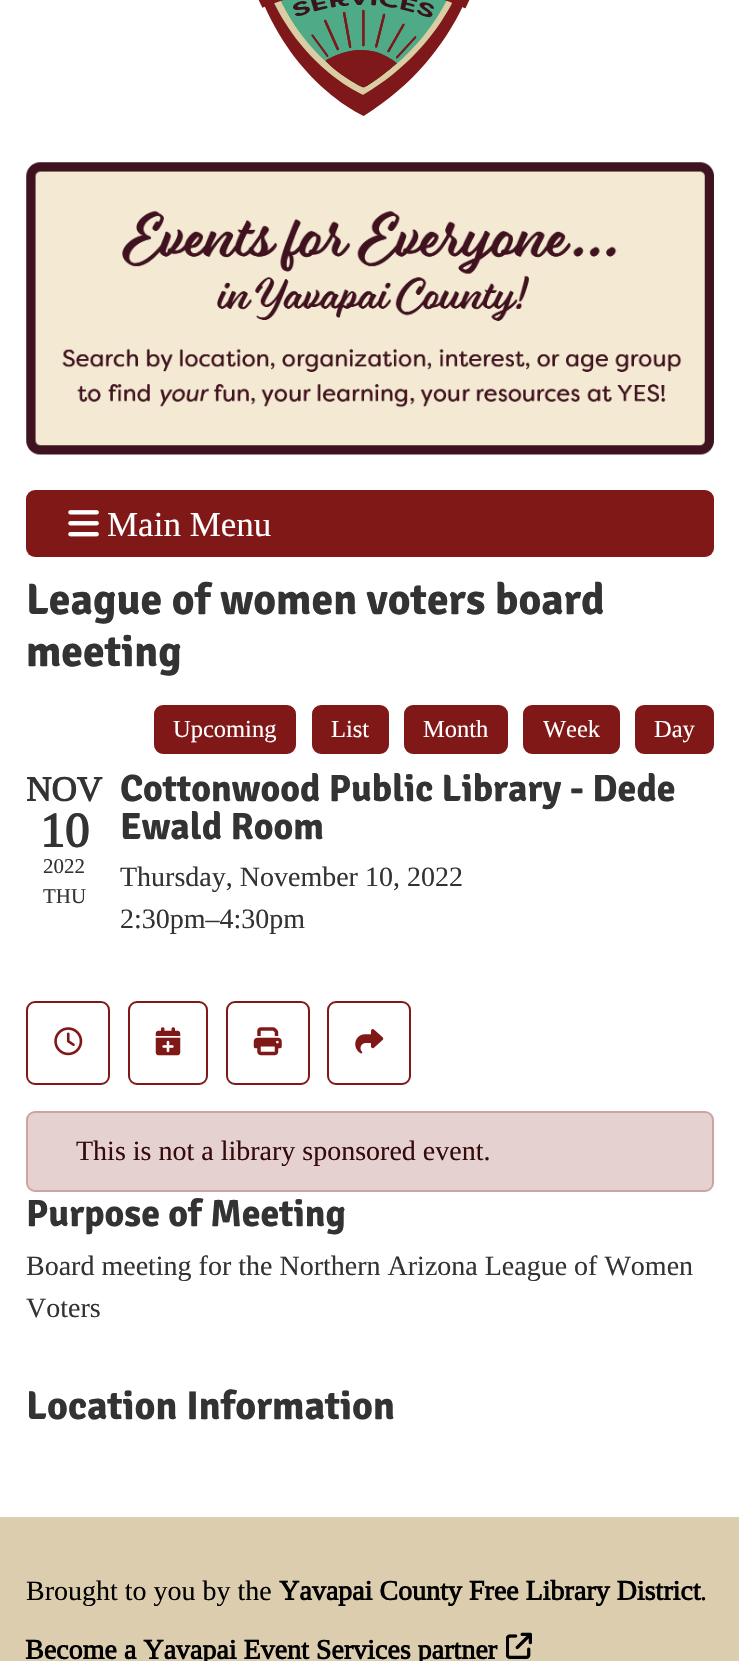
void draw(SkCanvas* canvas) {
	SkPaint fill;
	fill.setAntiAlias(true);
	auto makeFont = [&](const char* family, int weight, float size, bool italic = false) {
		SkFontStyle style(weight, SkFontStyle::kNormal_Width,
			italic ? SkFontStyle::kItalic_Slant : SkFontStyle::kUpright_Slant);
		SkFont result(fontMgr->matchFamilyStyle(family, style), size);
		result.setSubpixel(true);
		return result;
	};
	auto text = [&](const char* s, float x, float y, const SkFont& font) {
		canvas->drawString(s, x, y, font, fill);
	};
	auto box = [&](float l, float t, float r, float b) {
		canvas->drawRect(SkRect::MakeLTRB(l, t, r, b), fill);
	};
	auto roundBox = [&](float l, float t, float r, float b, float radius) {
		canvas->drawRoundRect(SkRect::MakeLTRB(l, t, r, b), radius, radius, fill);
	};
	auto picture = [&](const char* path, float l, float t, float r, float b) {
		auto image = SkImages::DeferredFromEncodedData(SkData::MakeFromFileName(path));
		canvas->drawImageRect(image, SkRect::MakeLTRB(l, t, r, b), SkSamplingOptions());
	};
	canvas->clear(0xFFFFFFFF);
	picture("image0.png", 258, 0, 470, 116);
	picture("image1.png", 26, 162, 714, 455);
	fill.setColor(0xFF811818);
	roundBox(26, 490, 714, 557, 9);
	picture("image2.png", 68, 510, 99, 537);
	canvas->drawRoundRect(SkRect::MakeLTRB(155, 706, 295, 753), 8, 8, fill);
	fill.setStyle(SkPaint::kStroke_Style);
	fill.setStrokeWidth(2);
	canvas->drawRoundRect(SkRect::MakeLTRB(155, 706, 295, 753), 8, 8, fill);
	fill.setStyle(SkPaint::kFill_Style);
	canvas->drawRoundRect(SkRect::MakeLTRB(313, 706, 388, 753), 8, 8, fill);
	fill.setStyle(SkPaint::kStroke_Style);
	canvas->drawRoundRect(SkRect::MakeLTRB(313, 706, 388, 753), 8, 8, fill);
	fill.setStyle(SkPaint::kFill_Style);
	canvas->drawRoundRect(SkRect::MakeLTRB(405, 706, 507, 753), 8, 8, fill);
	fill.setStyle(SkPaint::kStroke_Style);
	canvas->drawRoundRect(SkRect::MakeLTRB(405, 706, 507, 753), 8, 8, fill);
	fill.setStyle(SkPaint::kFill_Style);
	canvas->drawRoundRect(SkRect::MakeLTRB(524, 706, 619, 753), 8, 8, fill);
	fill.setStyle(SkPaint::kStroke_Style);
	canvas->drawRoundRect(SkRect::MakeLTRB(524, 706, 619, 753), 8, 8, fill);
	fill.setStyle(SkPaint::kFill_Style);
	canvas->drawRoundRect(SkRect::MakeLTRB(636, 706, 713, 753), 8, 8, fill);
	fill.setStyle(SkPaint::kStroke_Style);
	canvas->drawRoundRect(SkRect::MakeLTRB(636, 706, 713, 753), 8, 8, fill);
	canvas->drawRoundRect(SkRect::MakeLTRB(27, 1002, 109, 1084), 8, 8, fill);
	picture("image3.png", 54, 1027, 83, 1056);
	canvas->drawRoundRect(SkRect::MakeLTRB(129, 1002, 207, 1084), 8, 8, fill);
	picture("image4.png", 155, 1027, 181, 1056);
	canvas->drawRoundRect(SkRect::MakeLTRB(227, 1002, 309, 1084), 8, 8, fill);
	picture("image5.png", 253, 1027, 282, 1056);
	canvas->drawRoundRect(SkRect::MakeLTRB(328, 1002, 410, 1084), 8, 8, fill);
	picture("image6.png", 355, 1029, 384, 1054);
	fill.setStyle(SkPaint::kFill_Style);
	fill.setColor(0xFFE6D1D1);
	canvas->drawRoundRect(SkRect::MakeLTRB(27, 1112, 713, 1191), 8, 8, fill);
	fill.setStyle(SkPaint::kStroke_Style);
	fill.setColor(0xFFCDA3A3);
	canvas->drawRoundRect(SkRect::MakeLTRB(27, 1112, 713, 1191), 8, 8, fill);
	fill.setStyle(SkPaint::kFill_Style);
	fill.setColor(0xFFDCCDAE);
	box(0, 1517, 739, 1661);
	picture("image7.png", 506, 1632, 532, 1659);
	auto font1 = makeFont("Tinos", 400, 35);
	fill.setColor(0xFFFFFFFF);
	text("Main Menu", 107, 536, font1);
	auto font2 = makeFont("Signika", 700, 43.75f);
	fill.setColor(0xFF333333);
	text("League of women voters board", 26, 614, font2);
	text("meeting", 26, 666, font2);
	auto font3 = makeFont("Tinos", 400, 24.5f);
	fill.setColor(0xFFFFFFFF);
	text("Upcoming", 173, 737, font3);
	text("List", 331, 737, font3);
	text("Month", 423, 737, font3);
	text("Week", 543, 737, font3);
	text("Day", 654, 737, font3);
	auto font4 = makeFont("Tinos", 700, 35);
	fill.setColor(0xFF333333);
	text("NOV", 26, 801, font4);
	auto font5 = makeFont("Tinos", 700, 49);
	text("10", 40, 847, font5);
	auto font6 = makeFont("Tinos", 400, 21);
	text("2022", 43, 873, font6);
	text("THU", 43, 903, font6);
	auto font7 = makeFont("Signika", 700, 37.9f);
	text("Cottonwood Public Library - Dede", 120, 801, font7);
	text("Ewald Room", 120, 839, font7);
	auto font8 = makeFont("Tinos", 400, 28);
	text("Thursday, November 10, 2022", 120, 886, font8);
	text("2:30pm–4:30pm", 120, 928, font8);
	fill.setColor(0xFF340A0A);
	text("This is not a library sponsored event.", 76, 1160, font8);
	fill.setColor(0xFF333333);
	text("Purpose of Meeting", 26, 1226, font7);
	text("Board meeting for the Northern Arizona League of Women", 26, 1275, font8);
	text("Voters", 26, 1317, font8);
	auto font9 = makeFont("Signika", 700, 40.1f);
	text("Location Information", 26, 1419, font9);
	fill.setColor(0xFF000000);
	text("Brought to you by the", 26, 1600, font8);
	auto font10 = makeFont("Tinos", 700, 28);
	text("Yavapai County Free Library District", 279, 1600, font10);
	text(".", 700, 1600, font8);
	text("Become a Yavapai Event Services partner", 25, 1659, font10);
}
